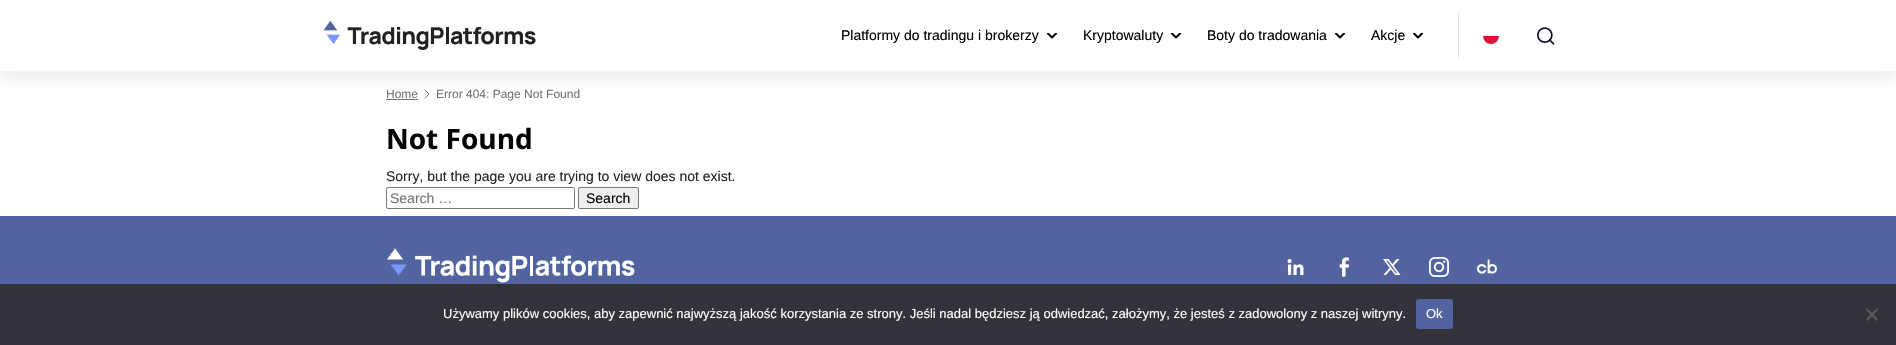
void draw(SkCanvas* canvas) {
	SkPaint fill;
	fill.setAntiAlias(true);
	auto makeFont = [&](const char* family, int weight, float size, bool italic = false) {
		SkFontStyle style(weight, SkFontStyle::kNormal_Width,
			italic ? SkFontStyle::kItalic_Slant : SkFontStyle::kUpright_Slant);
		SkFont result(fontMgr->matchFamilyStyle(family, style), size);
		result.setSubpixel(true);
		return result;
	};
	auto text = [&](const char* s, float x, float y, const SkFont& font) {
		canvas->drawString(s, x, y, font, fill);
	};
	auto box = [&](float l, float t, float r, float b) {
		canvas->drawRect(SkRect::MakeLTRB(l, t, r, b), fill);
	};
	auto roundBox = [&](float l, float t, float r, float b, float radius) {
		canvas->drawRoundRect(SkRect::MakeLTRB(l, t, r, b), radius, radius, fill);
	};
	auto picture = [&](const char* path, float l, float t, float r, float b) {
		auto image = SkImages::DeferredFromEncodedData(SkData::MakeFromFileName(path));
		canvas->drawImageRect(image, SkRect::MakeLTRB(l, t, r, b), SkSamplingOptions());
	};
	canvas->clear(0xFFFFFFFF);
	fill.setColor(0xFF737373);
	box(386, 99, 418, 100);
	fill.setStyle(SkPaint::kStroke_Style);
	fill.setStrokeWidth(1);
	fill.setStrokeCap(SkPaint::kRound_Cap);
	fill.setStrokeJoin(SkPaint::kRound_Join);
	fill.setColor(0xFF757575);
	canvas->drawPath(SkPathBuilder().moveTo(425, 98).lineTo(429, 94).lineTo(425, 90).detach(), fill);
	canvas->save();
	canvas->clipRect(SkRect::MakeLTRB(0, 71, 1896, 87));
	fill.setStyle(SkPaint::kFill_Style);
	fill.setColor(0x14000000);
	fill.setMaskFilter(SkMaskFilter::MakeBlur(kNormal_SkBlurStyle, 12));
	canvas->drawRect(SkRect::MakeLTRB(0, 8, 1896, 79), fill);
	fill.setMaskFilter(nullptr);
	canvas->restore();
	picture("image0.png", 323, 21, 536, 50);
	canvas->save();
	canvas->clipRect(SkRect::MakeLTRB(1047, 33, 1057, 39));
	fill.setStyle(SkPaint::kStroke_Style);
	fill.setStrokeWidth(2);
	fill.setColor(0xFF000000);
	canvas->drawPath(SkPathBuilder().moveTo(1048, 33.5f).lineTo(1052, 37.5f).lineTo(1056, 33.5f).detach(), fill);
	canvas->restore();
	canvas->save();
	canvas->clipRect(SkRect::MakeLTRB(1171, 33, 1181, 39));
	canvas->drawPath(SkPathBuilder().moveTo(1172, 33.5f).lineTo(1176, 37.5f).lineTo(1180, 33.5f).detach(), fill);
	canvas->restore();
	canvas->save();
	canvas->clipRect(SkRect::MakeLTRB(1335, 33, 1345, 39));
	canvas->drawPath(SkPathBuilder().moveTo(1336, 33.5f).lineTo(1340, 37.5f).lineTo(1344, 33.5f).detach(), fill);
	canvas->restore();
	canvas->save();
	canvas->clipRect(SkRect::MakeLTRB(1413, 33, 1423, 39));
	canvas->drawPath(SkPathBuilder().moveTo(1414, 33.5f).lineTo(1418, 37.5f).lineTo(1422, 33.5f).detach(), fill);
	canvas->restore();
	fill.setStyle(SkPaint::kFill_Style);
	fill.setColor(0xFFE3E2E2);
	box(1458, 13, 1459, 58);
	picture("image1.png", 1483, 36, 1499, 44);
	picture("image2.png", 1537, 27, 1555, 45);
	fill.setStyle(SkPaint::kStroke_Style);
	fill.setStrokeWidth(1);
	fill.setStrokeCap(SkPaint::kButt_Cap);
	fill.setStrokeJoin(SkPaint::kMiter_Join);
	fill.setColor(0xFF767676);
	canvas->drawRoundRect(SkRect::MakeLTRB(386.5f, 187.5f, 574.5f, 208.5f), 1.5f, 1.5f, fill);
	fill.setStyle(SkPaint::kFill_Style);
	fill.setColor(0xFFEFEFEF);
	canvas->drawRoundRect(SkRect::MakeLTRB(578.5f, 187.5f, 638.5f, 208.5f), 1.5f, 1.5f, fill);
	fill.setStyle(SkPaint::kStroke_Style);
	fill.setColor(0xFF767676);
	canvas->drawRoundRect(SkRect::MakeLTRB(578.5f, 187.5f, 638.5f, 208.5f), 1.5f, 1.5f, fill);
	fill.setStyle(SkPaint::kFill_Style);
	fill.setColor(0xFF51649F);
	box(0, 216, 1896, 284);
	picture("image3.png", 387, 248, 635, 283);
	picture("image4.png", 1287, 259, 1304, 275);
	picture("image5.png", 1339, 257, 1349, 277);
	picture("image6.png", 1383, 259, 1401, 275);
	picture("image7.png", 1429, 257, 1449, 277);
	picture("image8.png", 1477, 259, 1497, 274);
	fill.setColor(0xFF32323A);
	box(0, 284, 1896, 345);
	fill.setColor(0xFF51649F);
	roundBox(1416, 299, 1453, 329, 3);
	fill.setColor(0xFF59595D);
	canvas->drawPath(SkPathBuilder().moveTo(1876.5f, 308.5f).lineTo(1878, 310).lineTo(1867.5f, 321).lineTo(1866, 319.5f).close().detach(), fill);
	canvas->drawPath(SkPathBuilder().moveTo(1866, 310).lineTo(1867.5f, 308.5f).lineTo(1878, 319.5f).lineTo(1876.5f, 321).close().detach(), fill);
	auto font1 = makeFont("Liberation Sans", 400, 14);
	fill.setColor(0xFF000000);
	text("Platformy do tradingu i brokerzy", 841, 40, font1);
	text("Kryptowaluty", 1083, 40, font1);
	text("Boty do tradowania", 1207, 40, font1);
	text("Akcje", 1371, 40, font1);
	auto font2 = makeFont("Liberation Sans", 400, 12);
	fill.setColor(0xFF737373);
	text("Home", 386, 98, font2);
	text("Error 404: Page Not Found", 436, 98, font2);
	auto font3 = makeFont("Open Sans", 700, 28);
	fill.setColor(0xFF060606);
	text("Not Found", 386, 149, font3);
	fill.setColor(0xFF212529);
	text("Sorry, but the page you are trying to view does not exist.", 386, 181, font1);
	fill.setColor(0xFF737373);
	text("Search …", 390, 203, font1);
	fill.setColor(0xFF000000);
	text("Search", 586, 203, font1);
	auto font4 = makeFont("Liberation Sans", 400, 13);
	fill.setColor(0xFFFFFFFF);
	text("Używamy plików cookies, aby zapewnić najwyższą jakość korzystania ze strony. Jeśli nadal będziesz ją odwiedzać, założymy, że jesteś z zadowolony z naszej witryny.", 443, 318, font4);
	text("Ok", 1426, 318, font4);
}
